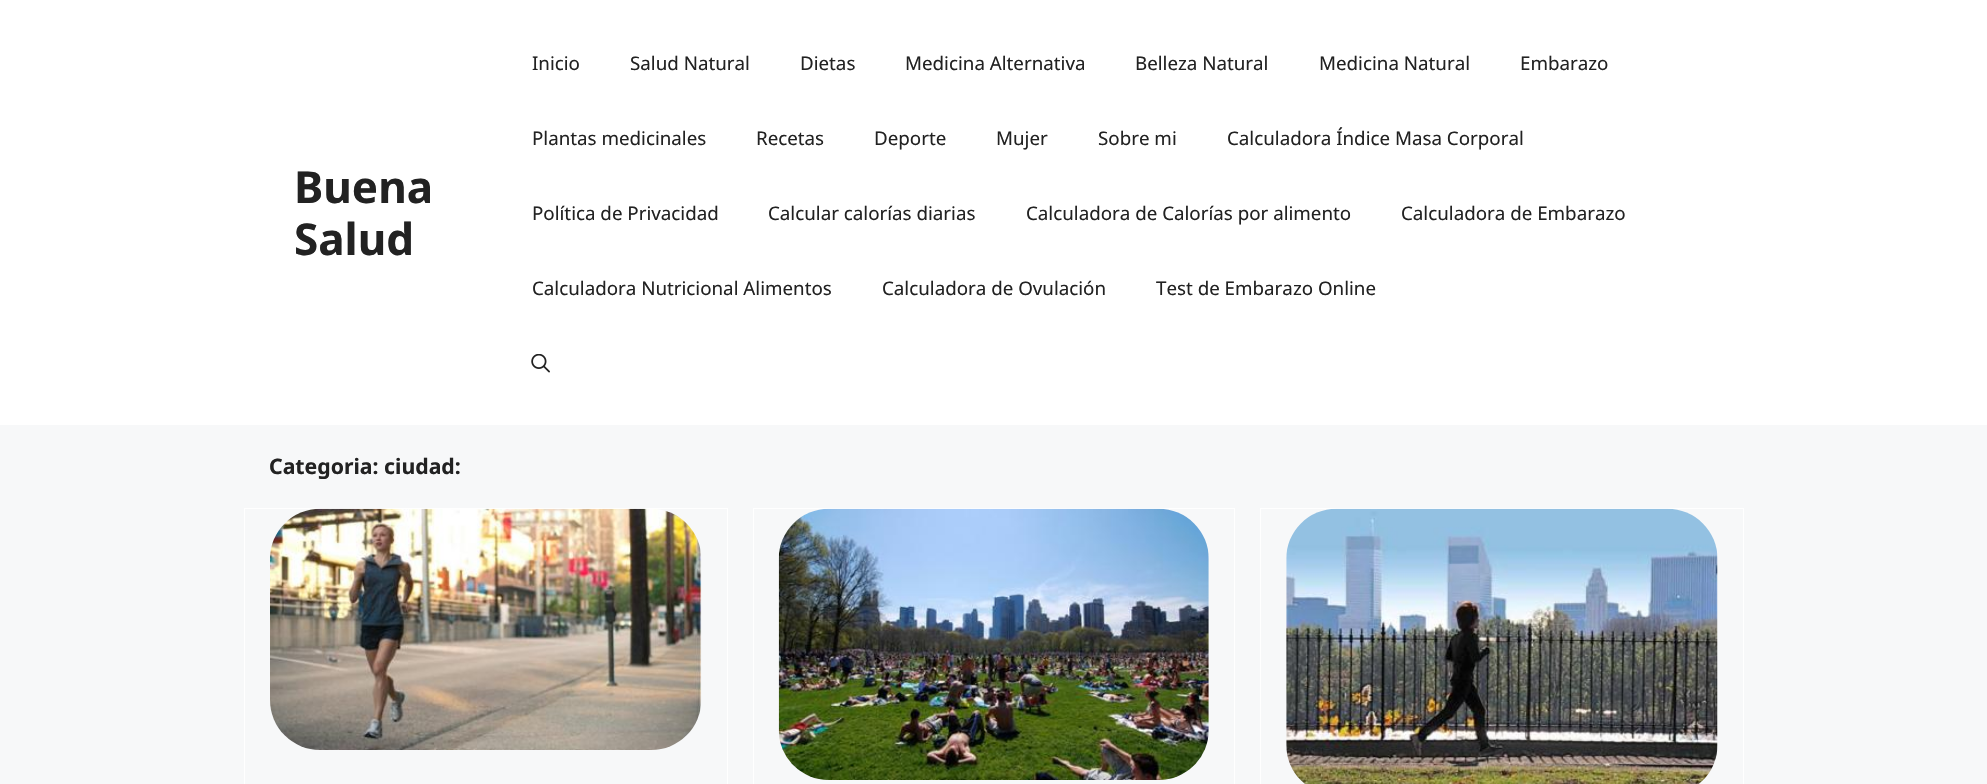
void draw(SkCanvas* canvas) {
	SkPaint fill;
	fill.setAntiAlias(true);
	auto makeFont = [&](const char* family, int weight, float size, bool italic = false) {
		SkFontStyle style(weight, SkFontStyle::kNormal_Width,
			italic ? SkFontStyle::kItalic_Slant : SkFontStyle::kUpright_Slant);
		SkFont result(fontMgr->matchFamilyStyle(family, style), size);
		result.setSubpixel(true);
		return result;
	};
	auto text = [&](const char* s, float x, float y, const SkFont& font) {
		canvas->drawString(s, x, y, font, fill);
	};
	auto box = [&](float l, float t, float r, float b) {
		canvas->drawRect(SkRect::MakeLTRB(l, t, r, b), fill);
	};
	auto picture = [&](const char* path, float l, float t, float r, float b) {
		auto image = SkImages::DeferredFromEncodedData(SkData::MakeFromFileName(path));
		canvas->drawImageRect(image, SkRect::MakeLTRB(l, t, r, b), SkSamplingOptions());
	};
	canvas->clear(0xFFF7F8F9);
	fill.setColor(0xFFFFFFFF);
	box(0, 0, 1987, 425);
	picture("image0.png", 531, 354, 550, 373);
	fill.setStyle(SkPaint::kStroke_Style);
	fill.setStrokeWidth(1);
	canvas->drawRect(SkRect::MakeLTRB(244.5f, 508.5f, 727.5f, 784.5f), fill);
	picture("image1.png", 270, 508, 702, 750);
	canvas->drawRect(SkRect::MakeLTRB(753.5f, 508.5f, 1234.5f, 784.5f), fill);
	picture("image2.png", 778, 508, 1209, 780);
	canvas->drawRect(SkRect::MakeLTRB(1260.5f, 508.5f, 1743.5f, 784.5f), fill);
	picture("image3.png", 1286, 508, 1718, 784);
	auto font1 = makeFont("Noto Sans", 700, 44);
	fill.setStyle(SkPaint::kFill_Style);
	fill.setColor(0xFF222222);
	text("Buena", 294, 203, font1);
	text("Salud", 294, 255, font1);
	auto font2 = makeFont("Noto Sans", 400, 18.75f);
	text("Inicio", 532, 70, font2);
	text("Salud Natural", 630, 70, font2);
	text("Dietas", 800, 70, font2);
	text("Medicina Alternativa", 905, 70, font2);
	text("Belleza Natural", 1135, 70, font2);
	text("Medicina Natural", 1319, 70, font2);
	text("Embarazo", 1520, 70, font2);
	text("Plantas medicinales", 532, 145, font2);
	text("Recetas", 756, 145, font2);
	text("Deporte", 874, 145, font2);
	text("Mujer", 996, 145, font2);
	text("Sobre mi", 1098, 145, font2);
	text("Calculadora Índice Masa Corporal", 1227, 145, font2);
	text("Política de Privacidad", 532, 220, font2);
	text("Calcular calorías diarias", 768, 220, font2);
	text("Calculadora de Calorías por alimento", 1026, 220, font2);
	text("Calculadora de Embarazo", 1401, 220, font2);
	text("Calculadora Nutricional Alimentos", 532, 295, font2);
	text("Calculadora de Ovulación", 882, 295, font2);
	text("Test de Embarazo Online", 1156, 295, font2);
	auto font3 = makeFont("Noto Sans", 700, 21.25f);
	text("Categoria: ciudad:", 269, 474, font3);
}
